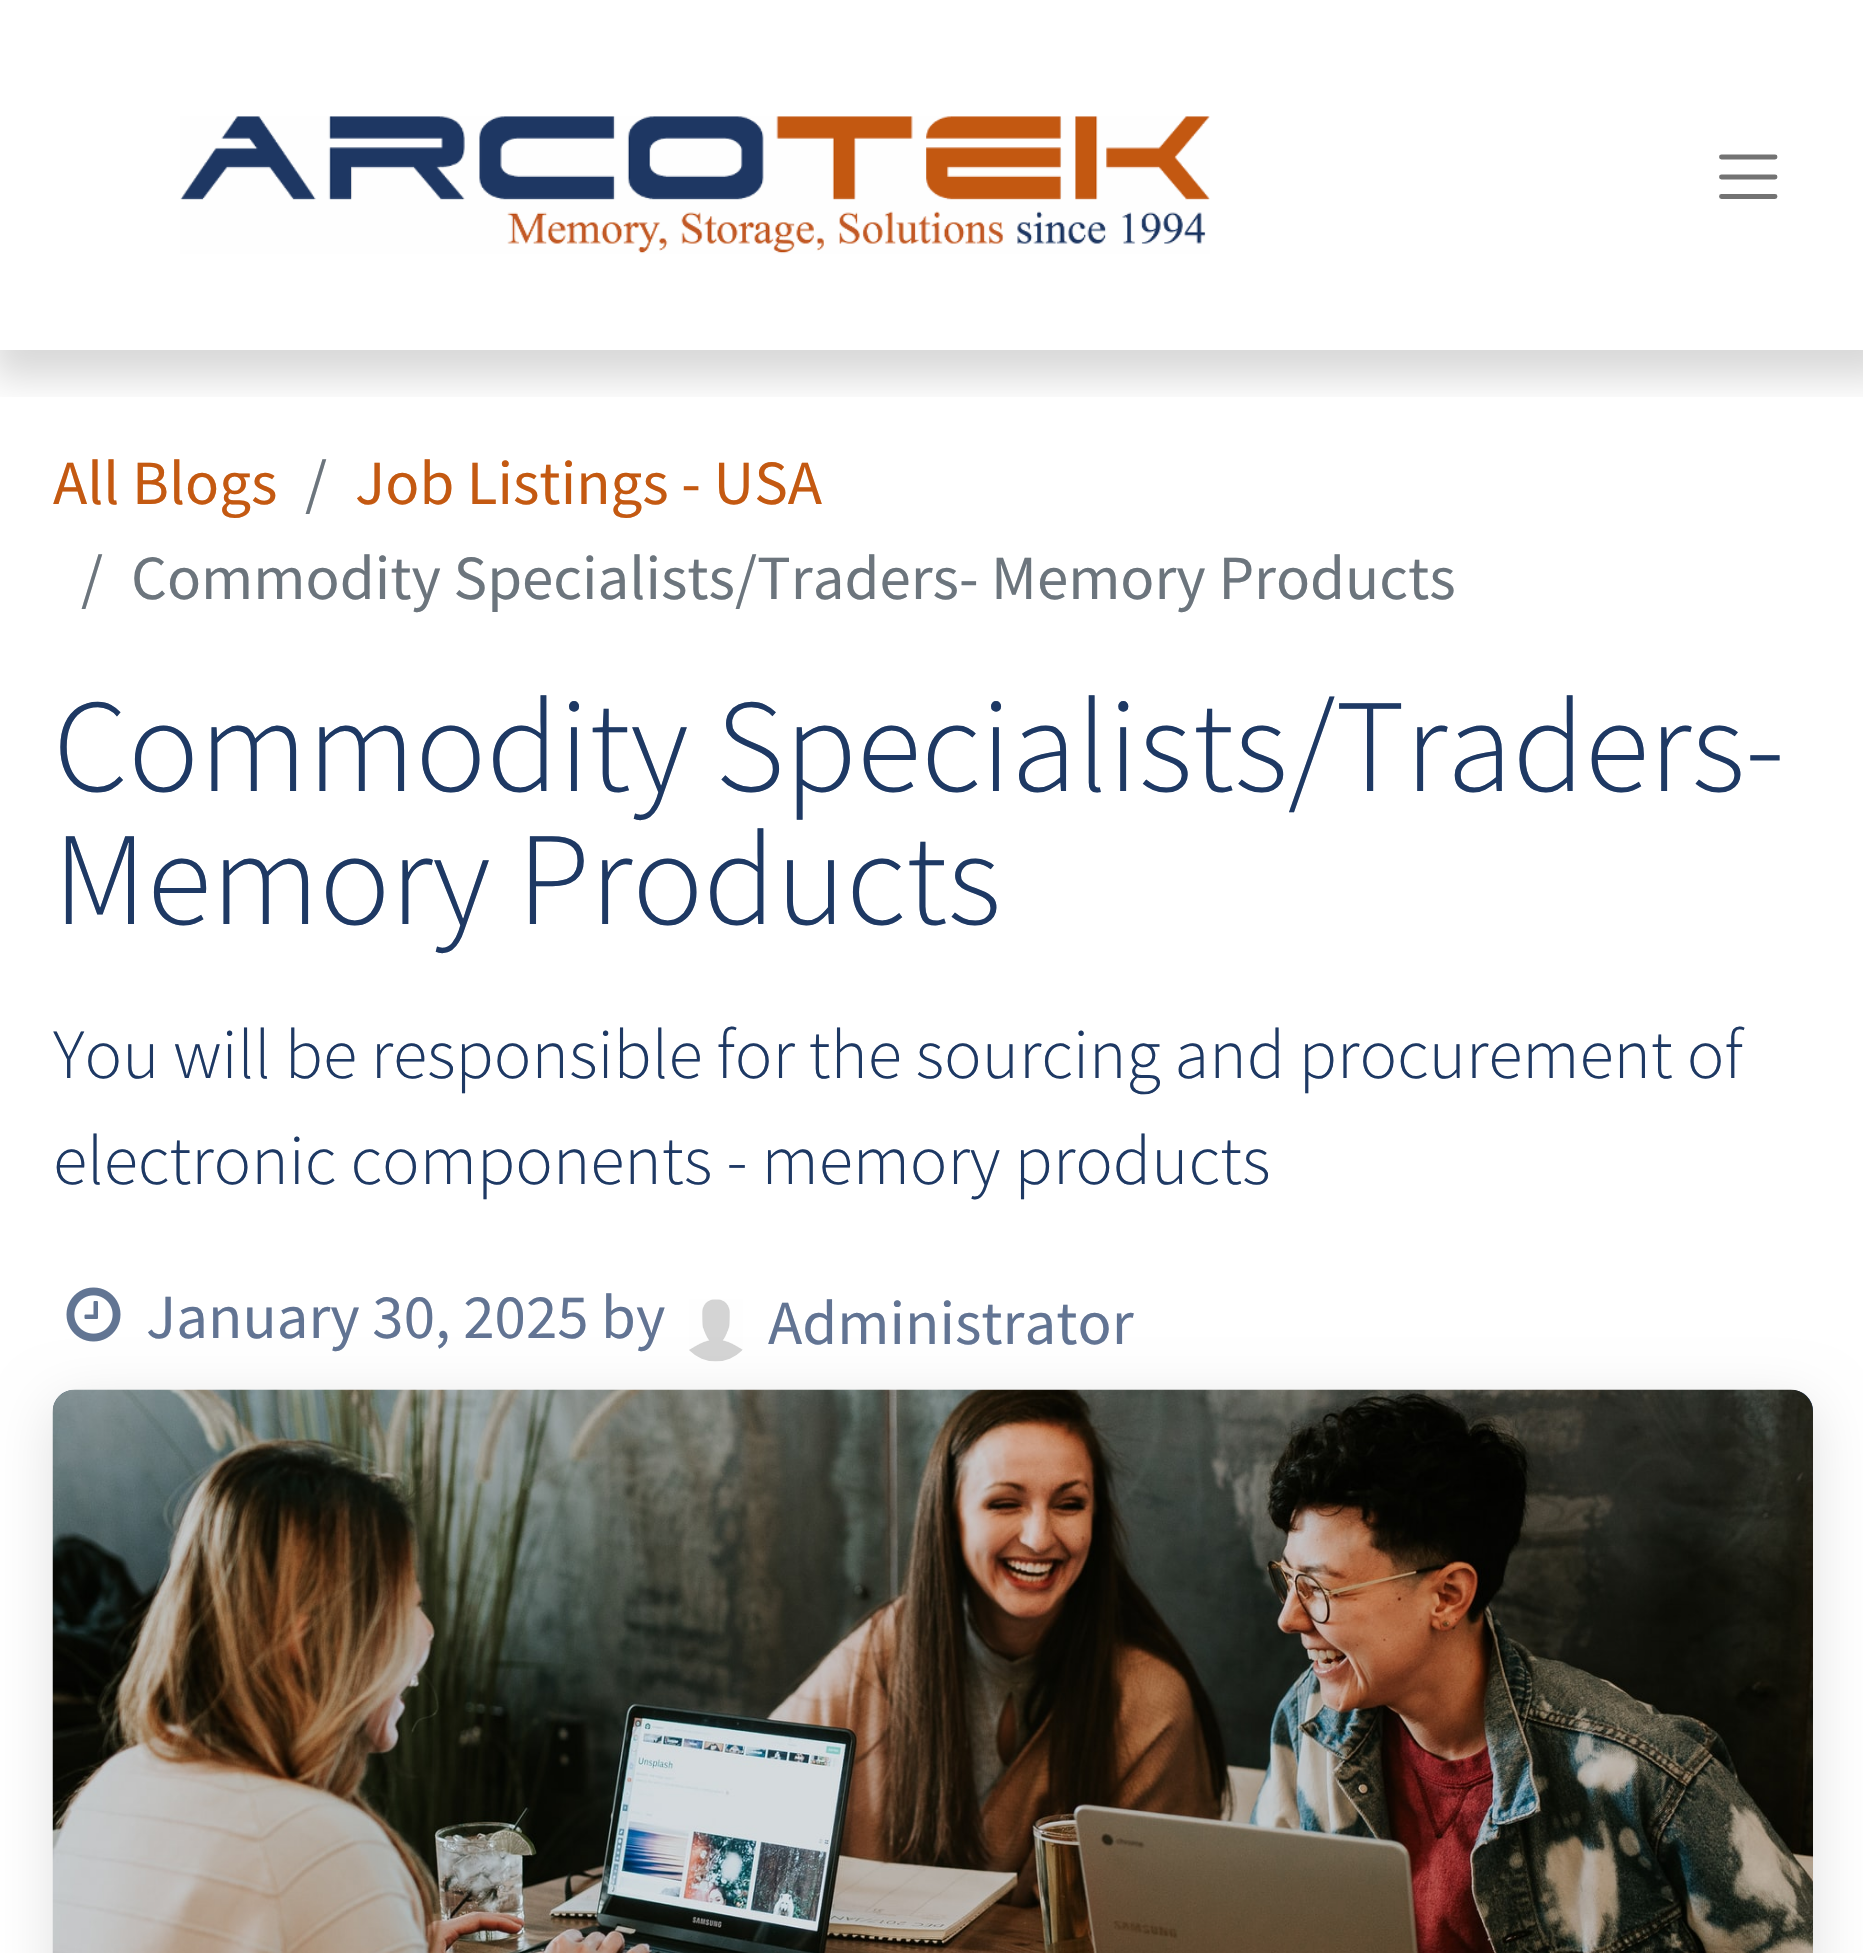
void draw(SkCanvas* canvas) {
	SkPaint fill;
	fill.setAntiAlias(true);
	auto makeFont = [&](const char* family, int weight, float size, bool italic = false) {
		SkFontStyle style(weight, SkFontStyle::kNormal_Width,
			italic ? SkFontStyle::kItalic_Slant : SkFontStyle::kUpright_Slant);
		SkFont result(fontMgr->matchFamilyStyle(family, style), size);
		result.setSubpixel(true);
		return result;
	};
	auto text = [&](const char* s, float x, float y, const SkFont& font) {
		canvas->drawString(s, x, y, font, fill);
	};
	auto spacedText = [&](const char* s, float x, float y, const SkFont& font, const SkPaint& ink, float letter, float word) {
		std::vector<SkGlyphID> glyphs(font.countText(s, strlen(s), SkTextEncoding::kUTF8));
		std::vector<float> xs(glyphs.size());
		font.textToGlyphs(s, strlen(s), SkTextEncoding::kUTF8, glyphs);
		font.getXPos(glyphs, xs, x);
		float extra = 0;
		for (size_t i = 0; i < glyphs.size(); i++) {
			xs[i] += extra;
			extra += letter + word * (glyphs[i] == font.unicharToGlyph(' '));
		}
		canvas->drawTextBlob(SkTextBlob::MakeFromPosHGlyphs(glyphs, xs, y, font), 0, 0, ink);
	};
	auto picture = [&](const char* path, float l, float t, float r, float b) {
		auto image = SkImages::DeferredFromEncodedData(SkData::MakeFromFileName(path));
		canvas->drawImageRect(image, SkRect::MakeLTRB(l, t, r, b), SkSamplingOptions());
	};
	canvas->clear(0xFFFFFFFF);
	canvas->save();
	canvas->clipRect(SkRect::MakeLTRB(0, 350, 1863, 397));
	fill.setColor(0x26000000);
	fill.setMaskFilter(SkMaskFilter::MakeBlur(kNormal_SkBlurStyle, 17.5f));
	canvas->drawRect(SkRect::MakeLTRB(-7, -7, 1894, 378), fill);
	fill.setMaskFilter(nullptr);
	canvas->restore();
	picture("image0.png", 180, 116, 1210, 254);
	fill.setStyle(SkPaint::kStroke_Style);
	fill.setStrokeWidth(4.9f);
	fill.setStrokeCap(SkPaint::kRound_Cap);
	fill.setColor(0xFF737373);
	canvas->drawPath(SkPathBuilder().moveTo(1721.5f, 157).lineTo(1775, 157).moveTo(1721.5f, 177).lineTo(1775, 177).moveTo(1721.5f, 196.5f).lineTo(1775, 196.5f).detach(), fill);
	picture("image1.png", 66, 1287, 121, 1342);
	picture("image2.png", 689, 1299, 743, 1362);
	fill.setStyle(SkPaint::kFill_Style);
	fill.setColor(0x1F000000);
	fill.setMaskFilter(SkMaskFilter::MakeBlur(kNormal_SkBlurStyle, 28));
	canvas->drawRoundRect(SkRect::MakeLTRB(53, 1404, 1813, 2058), 21, 21, fill);
	fill.setMaskFilter(nullptr);
	fill.setColor(0xFF1E3964);
	canvas->drawPath(SkPathBuilder().moveTo(74, 1390).lineTo(1792, 1390).cubicTo(1803.5f, 1390, 1813, 1399.5f, 1813, 1411).lineTo(1813, 1953).lineTo(53, 1953).lineTo(53, 1411).cubicTo(53, 1399.5f, 62.5f, 1390, 74, 1390).close().detach(), fill);
	picture("image3.png", 52, 1389, 1813, 1953);
	auto font1 = makeFont("Source Sans Pro", 400, 63);
	fill.setColor(0xFFC45911);
	text("All Blogs", 53, 504, font1);
	fill.setColor(0xFF6C757D);
	text("/", 305, 504, font1);
	fill.setColor(0xFFC45911);
	text("Job Listings - USA", 355, 504, font1);
	fill.setColor(0xFF6C757D);
	text("/", 81, 599, font1);
	text("Commodity Specialists/Traders- Memory Products", 131, 599, font1);
	auto font2 = makeFont("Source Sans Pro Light", 300, 133);
	fill.setColor(0xFF1E3964);
	text("Commodity Specialists/Traders-", 53, 791, font2);
	text("Memory Products", 53, 924, font2);
	auto font3 = makeFont("Source Sans Pro Light", 300, 70.4f);
	spacedText("You will be responsible for the sourcing and procurement of", 53, 1078, font3, fill, 0, -0.25f);
	text("electronic components - memory products", 53, 1184, font3);
	fill.setColor(0xFF627493);
	text("January 30, 2025 by", 146, 1338, font1);
	text("Administrator", 768, 1344, font1);
}
